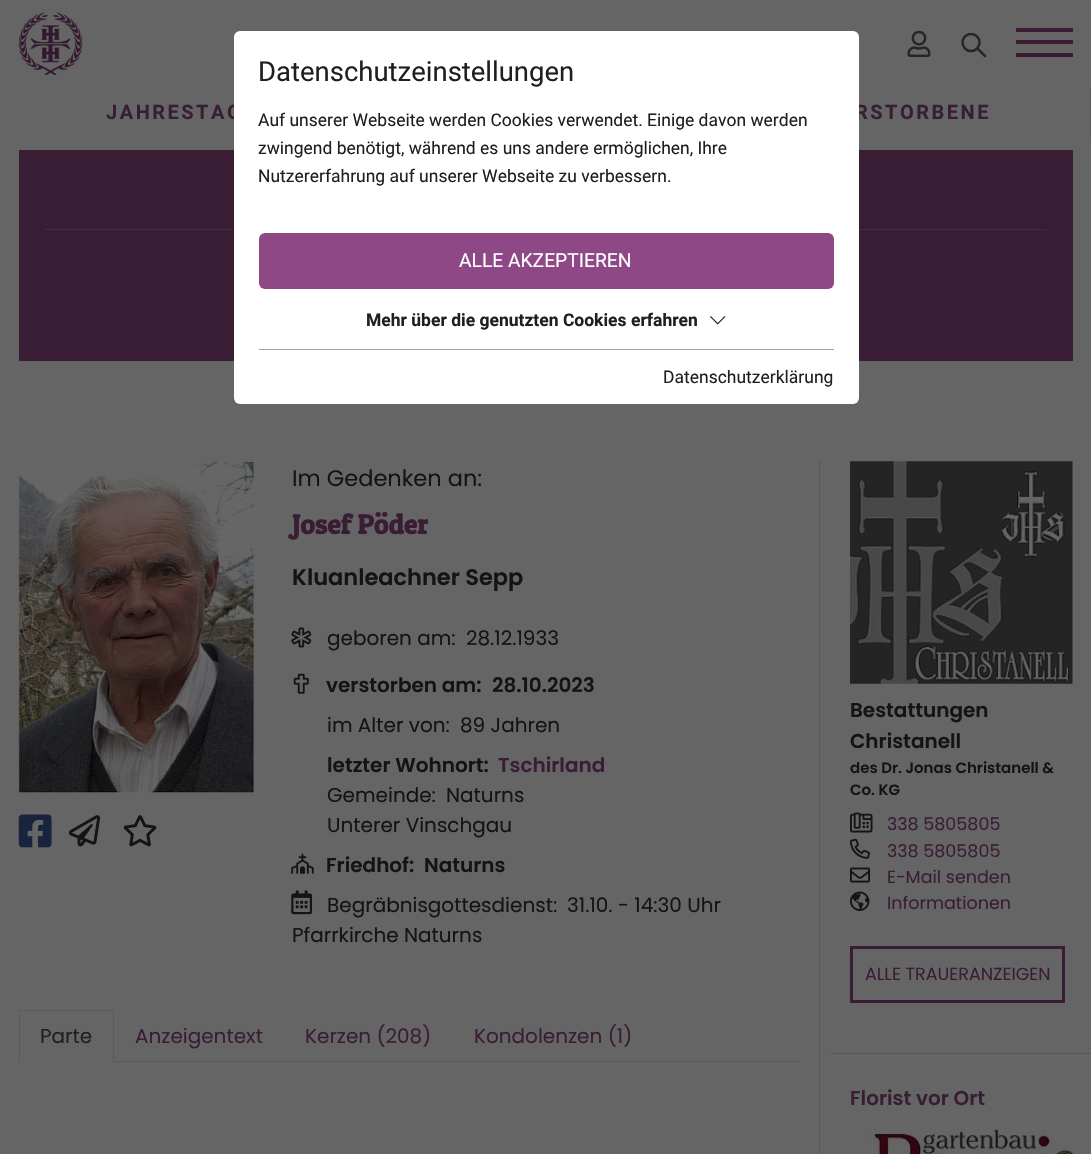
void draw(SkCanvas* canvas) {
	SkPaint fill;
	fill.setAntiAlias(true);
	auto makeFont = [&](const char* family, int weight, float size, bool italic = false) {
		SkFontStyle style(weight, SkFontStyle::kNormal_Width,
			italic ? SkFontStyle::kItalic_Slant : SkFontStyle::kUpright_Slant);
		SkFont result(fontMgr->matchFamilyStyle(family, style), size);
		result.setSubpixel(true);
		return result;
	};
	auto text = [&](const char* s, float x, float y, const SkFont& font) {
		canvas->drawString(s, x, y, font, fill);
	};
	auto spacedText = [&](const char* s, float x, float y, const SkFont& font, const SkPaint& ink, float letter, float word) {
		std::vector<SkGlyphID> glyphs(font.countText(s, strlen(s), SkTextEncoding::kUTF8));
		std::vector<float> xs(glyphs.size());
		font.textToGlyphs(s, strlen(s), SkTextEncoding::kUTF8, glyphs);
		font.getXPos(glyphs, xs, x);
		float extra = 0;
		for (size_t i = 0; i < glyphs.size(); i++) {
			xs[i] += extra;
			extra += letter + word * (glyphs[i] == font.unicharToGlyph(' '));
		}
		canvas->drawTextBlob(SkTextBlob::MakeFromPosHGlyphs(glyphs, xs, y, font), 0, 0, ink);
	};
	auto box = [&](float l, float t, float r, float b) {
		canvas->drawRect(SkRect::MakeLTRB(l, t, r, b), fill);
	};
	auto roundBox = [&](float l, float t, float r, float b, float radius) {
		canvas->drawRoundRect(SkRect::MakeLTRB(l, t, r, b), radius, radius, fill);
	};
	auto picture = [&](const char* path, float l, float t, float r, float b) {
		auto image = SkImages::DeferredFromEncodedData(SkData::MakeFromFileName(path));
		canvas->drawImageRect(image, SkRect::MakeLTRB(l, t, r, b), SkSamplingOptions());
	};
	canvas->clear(0xFF666565);
	picture("image1.png", 18, 12, 83, 75);
	picture("image2.png", 907, 30, 931, 57);
	canvas->save();
	canvas->clipRect(SkRect::MakeLTRB(961, 33, 986, 58));
	fill.setStyle(SkPaint::kStroke_Style);
	fill.setStrokeWidth(2.5f);
	fill.setColor(0xFF262626);
	canvas->drawCircle(971, 42.5f, 8.5f, fill);
	canvas->restore();
	fill.setStrokeCap(SkPaint::kRound_Cap);
	fill.setStrokeJoin(SkPaint::kRound_Join);
	canvas->drawPath(SkPathBuilder().moveTo(985, 56).lineTo(977.5f, 48.5f).detach(), fill);
	fill.setStyle(SkPaint::kFill_Style);
	fill.setColor(0xFF391D35);
	box(1016, 28, 1073, 32);
	box(1016, 40, 1073, 44);
	box(1016, 53, 1073, 57);
	fill.setColor(0xFF595959);
	box(1090, 88, 1091, 138);
	fill.setColor(0xFF391D35);
	box(19, 150, 1073, 361);
	fill.setColor(0xFF422C3F);
	box(45, 229, 1046, 230);
	picture("image3.png", 18, 461, 254, 793);
	picture("image4.png", 18, 814, 52, 848);
	picture("image5.png", 68, 815, 101, 847);
	picture("image6.png", 123, 815, 157, 847);
	picture("image7.png", 291, 627, 312, 648);
	picture("image8.png", 293, 673, 309, 694);
	picture("image9.png", 291, 853, 314, 874);
	picture("image10.png", 291, 890, 313, 915);
	fill.setColor(0xFF595A5C);
	box(114, 1061, 800, 1062);
	box(19, 1010, 114, 1011);
	box(113, 1010, 114, 1063);
	fill.setColor(0xFF666666);
	box(113, 1061, 114, 1062);
	fill.setColor(0xFF595A5C);
	box(19, 1010, 20, 1063);
	fill.setColor(0xFF595859);
	box(819, 461, 820, 1154);
	box(831, 1053, 1091, 1054);
	picture("image11.png", 850, 461, 1073, 684);
	picture("image12.png", 850, 812, 873, 833);
	picture("image13.png", 850, 838, 870, 859);
	picture("image14.png", 850, 867, 870, 883);
	picture("image15.png", 850, 891, 870, 911);
	fill.setStyle(SkPaint::kStroke_Style);
	fill.setStrokeWidth(3);
	fill.setStrokeCap(SkPaint::kButt_Cap);
	fill.setStrokeJoin(SkPaint::kMiter_Join);
	fill.setColor(0xFF391D35);
	canvas->drawRect(SkRect::MakeLTRB(851.5f, 947.5f, 1063.5f, 1001.5f), fill);
	picture("image16.png", 868, 1126, 1073, 1154);
	auto font1 = makeFont("Roboto", 700, 20);
	fill.setStyle(SkPaint::kFill_Style);
	spacedText("JAHRESTAG", 106, 119, font1, fill, 2.5f, 0);
	spacedText("RSTORBENE", 855, 119, font1, fill, 2.5f, 0);
	fill.setColor(0xFFFFFFFF);
	roundBox(234, 31, 859, 404, 6);
	picture("image0.png", 710, 316, 726, 325);
	auto font2 = makeFont("Roboto", 700, 17.5f);
	fill.setColor(0xFF1D2023);
	text("Mehr über die genutzten Cookies erfahren", 366, 326, font2);
	auto font3 = makeFont("Roboto", 400, 17.5f);
	text("Datenschutzerklärung", 663, 383, font3);
	fill.setColor(0xFF8E4885);
	roundBox(259, 233, 834, 289, 6);
	auto font4 = makeFont("Roboto", 400, 19.25f);
	fill.setColor(0xFFFFFFFF);
	text("ALLE AKZEPTIEREN", 459, 267, font4);
	fill.setColor(0xFF1D2023);
	text("Nutzererfahrung auf unserer Webseite zu verbessern.", 258, 182, font3);
	text("zwingend benötigt, während es uns andere ermöglichen, Ihre", 258, 154, font3);
	text("Auf unserer Webseite werden Cookies verwendet. Einige davon werden", 258, 126, font3);
	auto font5 = makeFont("Roboto", 400, 27.5f);
	text("Datenschutzeinstellungen", 258, 81, font5);
	fill.setColor(0xFFA5A5A5);
	box(259, 349, 834, 350);
	auto font6 = makeFont("Poppins", 400, 22.5f);
	fill.setColor(0xFF141414);
	text("Im Gedenken an:", 292, 486, font6);
	auto font7 = makeFont("Patua One", 700, 27.5f);
	fill.setColor(0xFF391D35);
	text("Josef Pöder", 292, 534, font7);
	auto font8 = makeFont("Poppins", 600, 22.5f);
	fill.setColor(0xFF141414);
	text("Kluanleachner Sepp", 292, 585, font8);
	auto font9 = makeFont("Poppins", 400, 20);
	text("geboren am:", 327, 645, font9);
	text("28.12.1933", 466, 645, font9);
	auto font10 = makeFont("Poppins", 600, 20);
	text("verstorben am:", 326, 692, font10);
	text("28.10.2023", 492, 692, font10);
	text("im Alter von:", 327, 732, font9);
	text("89 Jahren", 460, 732, font9);
	text("letzter Wohnort:", 327, 772, font10);
	fill.setColor(0xFF391D35);
	text("Tschirland", 498, 772, font10);
	fill.setColor(0xFF141414);
	text("Gemeinde:", 327, 802, font9);
	text("Naturns", 446, 802, font9);
	text("Unterer Vinschgau", 327, 832, font9);
	text("Friedhof:", 326, 872, font10);
	text("Naturns", 424, 872, font10);
	text("Begräbnisgottesdienst:", 327, 912, font9);
	text("31.10. - 14:30 Uhr", 567, 912, font9);
	text("Pfarrkirche Naturns", 292, 942, font9);
	fill.setColor(0xFF1D2023);
	text("Parte", 40, 1043, font9);
	fill.setColor(0xFF391D35);
	text("Anzeigentext", 135, 1043, font9);
	text("Kerzen (208)", 305, 1043, font9);
	text("Kondolenzen (1)", 474, 1043, font9);
	fill.setColor(0xFF141414);
	text("Bestattungen", 850, 717, font10);
	text("Christanell", 850, 748, font10);
	auto font11 = makeFont("Poppins", 600, 15);
	text("des Dr. Jonas Christanell &", 850, 773, font11);
	text("Co. KG", 850, 795, font11);
	auto font12 = makeFont("Poppins", 400, 17.5f);
	fill.setColor(0xFF391D35);
	text("338 5805805", 887, 830, font12);
	text("338 5805805", 887, 857, font12);
	text("E-Mail senden", 887, 883, font12);
	text("Informationen", 887, 909, font12);
	text("ALLE TRAUERANZEIGEN", 865, 980, font12);
	text("Florist vor Ort", 850, 1105, font10);
}
